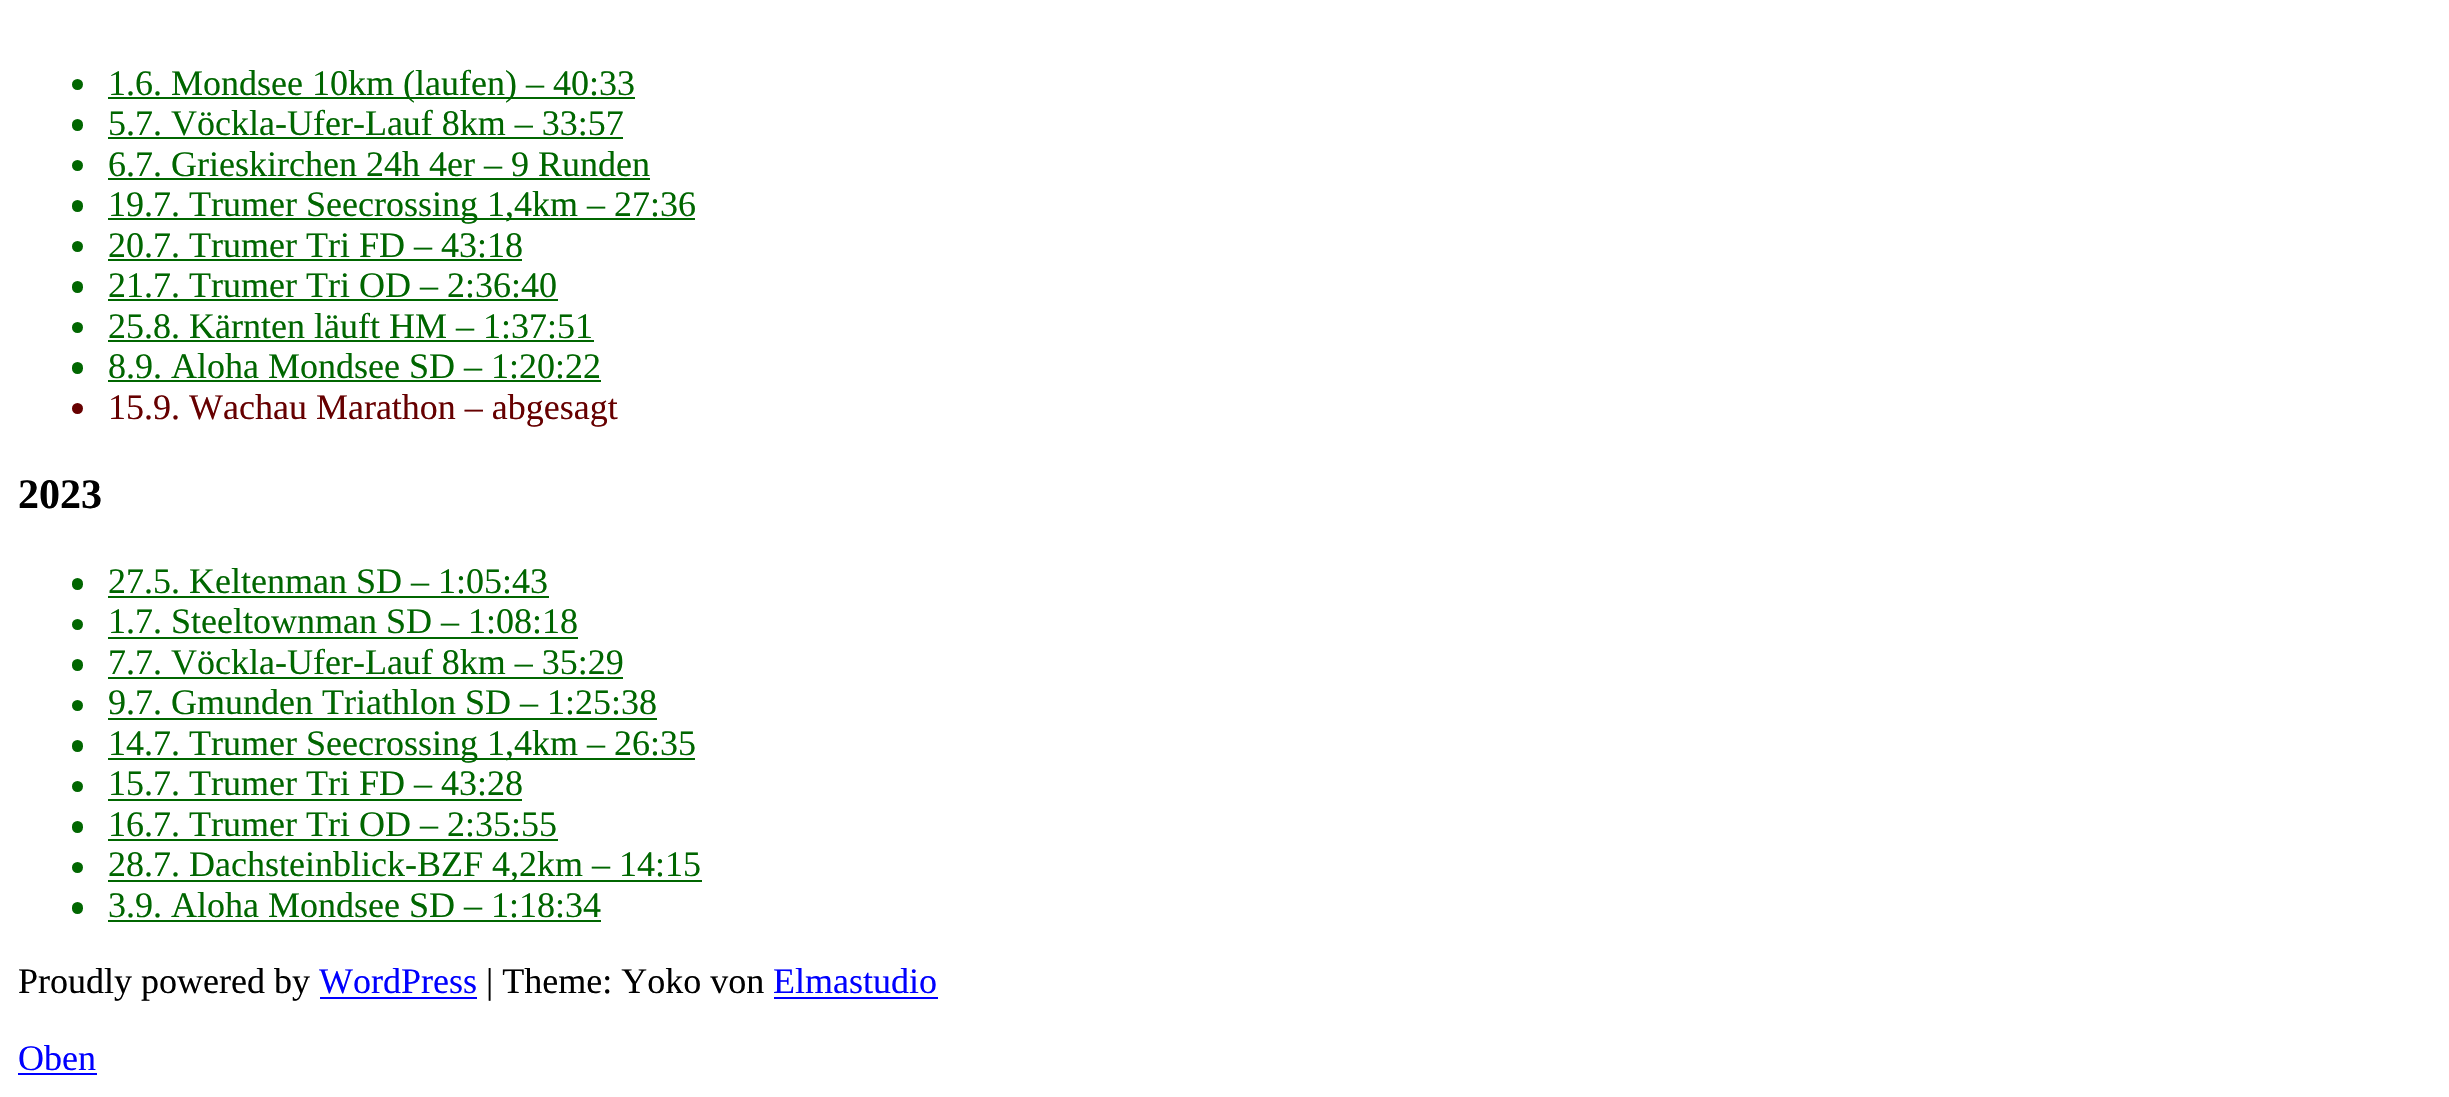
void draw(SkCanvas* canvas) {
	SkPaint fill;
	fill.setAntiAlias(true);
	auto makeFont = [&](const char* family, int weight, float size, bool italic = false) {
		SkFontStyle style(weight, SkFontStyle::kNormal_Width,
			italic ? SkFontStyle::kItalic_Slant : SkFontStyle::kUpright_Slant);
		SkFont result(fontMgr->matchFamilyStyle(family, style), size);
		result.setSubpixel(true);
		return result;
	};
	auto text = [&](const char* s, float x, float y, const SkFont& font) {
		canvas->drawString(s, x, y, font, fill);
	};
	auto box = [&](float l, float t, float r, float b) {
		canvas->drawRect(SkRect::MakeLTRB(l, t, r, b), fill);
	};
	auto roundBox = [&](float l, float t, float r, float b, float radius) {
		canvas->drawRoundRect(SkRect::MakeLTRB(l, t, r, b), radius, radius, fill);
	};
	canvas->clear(0xFFFFFFFF);
	fill.setColor(0xFF006600);
	canvas->drawCircle(77.5f, 84.5f, 5.5f, fill);
	box(108, 97, 635, 99);
	roundBox(72, 119, 83, 131, 5.5f);
	box(108, 137, 623, 139);
	canvas->drawCircle(77.5f, 165.5f, 5.5f, fill);
	box(108, 178, 650, 180);
	roundBox(72, 200, 83, 212, 5.5f);
	box(108, 218, 695, 220);
	canvas->drawCircle(77.5f, 246.5f, 5.5f, fill);
	box(108, 259, 522, 261);
	roundBox(72, 281, 83, 293, 5.5f);
	box(108, 299, 558, 301);
	canvas->drawCircle(77.5f, 327.5f, 5.5f, fill);
	box(108, 340, 594, 342);
	roundBox(72, 362, 83, 374, 5.5f);
	box(108, 380, 601, 382);
	fill.setColor(0xFF660000);
	canvas->drawCircle(77.5f, 408.5f, 5.5f, fill);
	fill.setColor(0xFF006600);
	roundBox(72, 578, 83, 590, 5.5f);
	box(108, 596, 549, 598);
	canvas->drawCircle(77.5f, 624.5f, 5.5f, fill);
	box(108, 637, 578, 639);
	roundBox(72, 659, 83, 671, 5.5f);
	box(108, 677, 623, 679);
	canvas->drawCircle(77.5f, 705.5f, 5.5f, fill);
	box(108, 718, 657, 720);
	roundBox(72, 740, 83, 752, 5.5f);
	box(108, 758, 695, 760);
	canvas->drawCircle(77.5f, 786.5f, 5.5f, fill);
	box(108, 799, 522, 801);
	roundBox(72, 821, 83, 833, 5.5f);
	box(108, 839, 558, 841);
	canvas->drawCircle(77.5f, 867.5f, 5.5f, fill);
	box(108, 880, 702, 882);
	roundBox(72, 902, 83, 914, 5.5f);
	box(108, 920, 601, 922);
	fill.setColor(0xFF0000FE);
	box(320, 997, 477, 999);
	box(774, 997, 938, 999);
	box(18, 1073, 97, 1075);
	auto font1 = makeFont("Liberation Serif", 400, 36);
	fill.setColor(0xFF006600);
	text("1.6. Mondsee 10km (laufen) – 40:33", 108, 95, font1);
	text("5.7. Vöckla-Ufer-Lauf 8km – 33:57", 108, 135, font1);
	text("6.7. Grieskirchen 24h 4er – 9 Runden", 108, 176, font1);
	text("19.7. Trumer Seecrossing 1,4km – 27:36", 108, 216, font1);
	text("20.7. Trumer Tri FD – 43:18", 108, 257, font1);
	text("21.7. Trumer Tri OD – 2:36:40", 108, 297, font1);
	text("25.8. Kärnten läuft HM – 1:37:51", 108, 338, font1);
	text("8.9. Aloha Mondsee SD – 1:20:22", 108, 378, font1);
	fill.setColor(0xFF660000);
	text("15.9. Wachau Marathon – abgesagt", 108, 419, font1);
	auto font2 = makeFont("Liberation Serif", 700, 42);
	fill.setColor(0xFF000000);
	text("2023", 18, 508, font2);
	fill.setColor(0xFF006600);
	text("27.5. Keltenman SD – 1:05:43", 108, 593, font1);
	text("1.7. Steeltownman SD – 1:08:18", 108, 633, font1);
	text("7.7. Vöckla-Ufer-Lauf 8km – 35:29", 108, 674, font1);
	text("9.7. Gmunden Triathlon SD – 1:25:38", 108, 714, font1);
	text("14.7. Trumer Seecrossing 1,4km – 26:35", 108, 755, font1);
	text("15.7. Trumer Tri FD – 43:28", 108, 795, font1);
	text("16.7. Trumer Tri OD – 2:35:55", 108, 836, font1);
	text("28.7. Dachsteinblick-BZF 4,2km – 14:15", 108, 876, font1);
	text("3.9. Aloha Mondsee SD – 1:18:34", 108, 917, font1);
	fill.setColor(0xFF000000);
	text("Proudly powered by", 18, 993, font1);
	fill.setColor(0xFF0000FE);
	text("WordPress", 319, 993, font1);
	fill.setColor(0xFF000000);
	text("| Theme: Yoko von", 486, 993, font1);
	fill.setColor(0xFF0000FE);
	text("Elmastudio", 773, 993, font1);
	text("Oben", 18, 1070, font1);
}
